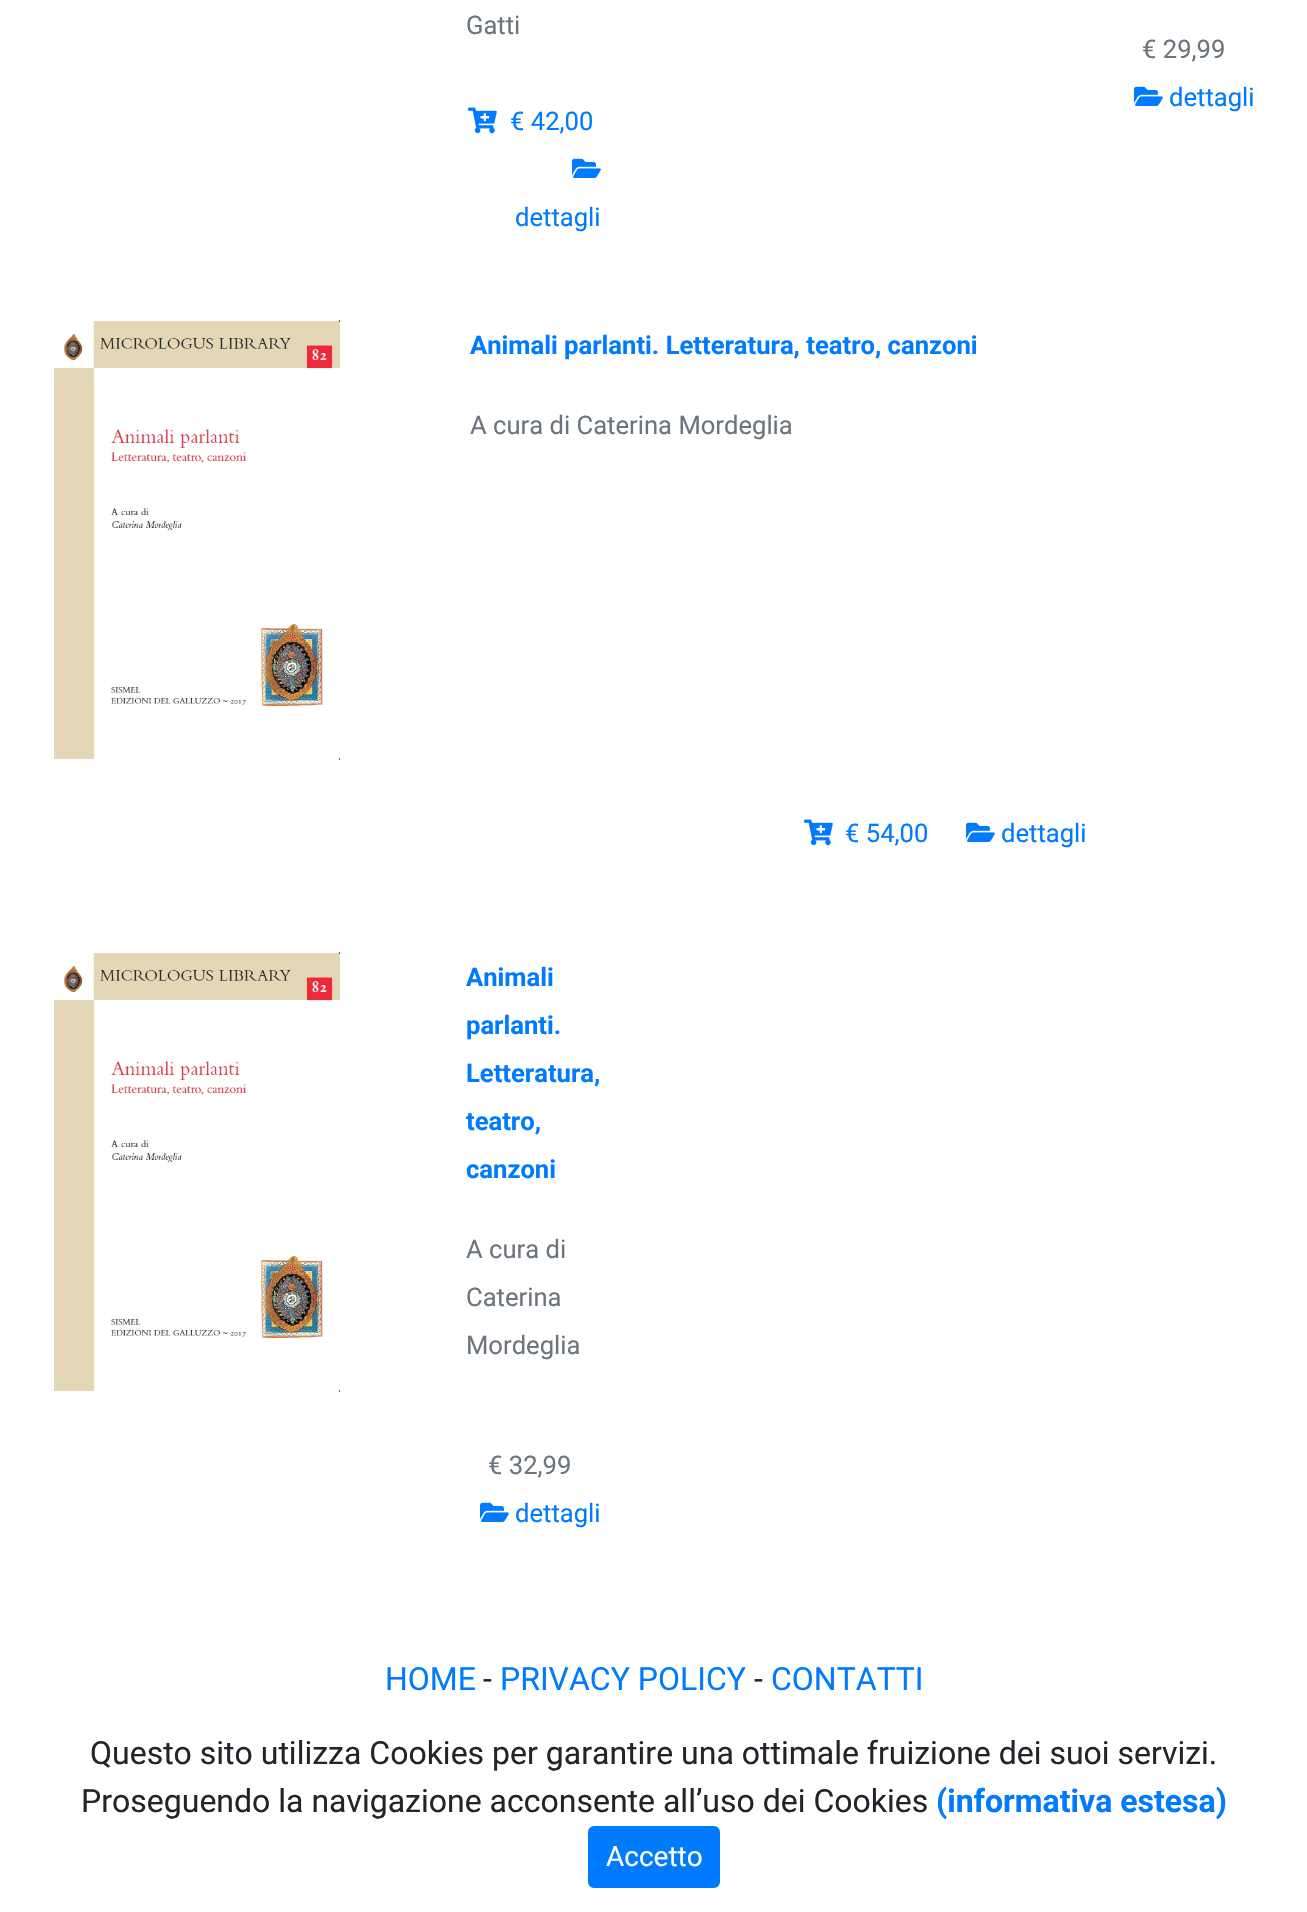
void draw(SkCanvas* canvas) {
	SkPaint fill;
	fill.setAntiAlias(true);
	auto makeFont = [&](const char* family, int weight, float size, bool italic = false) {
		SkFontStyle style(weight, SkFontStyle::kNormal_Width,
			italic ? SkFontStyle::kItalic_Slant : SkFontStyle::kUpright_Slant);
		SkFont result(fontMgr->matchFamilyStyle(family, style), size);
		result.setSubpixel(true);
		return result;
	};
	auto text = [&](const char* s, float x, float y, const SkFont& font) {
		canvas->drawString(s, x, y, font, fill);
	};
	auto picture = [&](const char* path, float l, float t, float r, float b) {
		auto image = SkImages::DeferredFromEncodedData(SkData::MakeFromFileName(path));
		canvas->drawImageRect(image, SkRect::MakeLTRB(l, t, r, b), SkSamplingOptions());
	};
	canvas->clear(0xFFFFFFFF);
	picture("image0.png", 468, 107, 497, 134);
	picture("image1.png", 572, 158, 601, 178);
	picture("image1.png", 1134, 86, 1163, 106);
	picture("image2.png", 54, 320, 340, 760);
	picture("image0.png", 804, 819, 833, 846);
	picture("image1.png", 966, 822, 995, 842);
	picture("image3.png", 54, 952, 340, 1392);
	picture("image1.png", 480, 1502, 509, 1522);
	fill.setColor(0xFF007BFF);
	canvas->drawRoundRect(SkRect::MakeLTRB(589, 1827, 719, 1887), 5, 5, fill);
	fill.setStyle(SkPaint::kStroke_Style);
	fill.setStrokeWidth(2);
	canvas->drawRoundRect(SkRect::MakeLTRB(589, 1827, 719, 1887), 5, 5, fill);
	auto font1 = makeFont("Roboto", 400, 25.6f);
	fill.setStyle(SkPaint::kFill_Style);
	fill.setColor(0xFF6C757D);
	text("Gatti", 466, 34, font1);
	fill.setColor(0xFF007BFF);
	text("€ 42,00", 510, 130, font1);
	text("dettagli", 515, 226, font1);
	fill.setColor(0xFF6C757D);
	text("€ 29,99", 1142, 58, font1);
	fill.setColor(0xFF007BFF);
	text("dettagli", 1169, 106, font1);
	auto font2 = makeFont("Roboto", 700, 25.6f);
	text("Animali parlanti. Letteratura, teatro, canzoni", 470, 354, font2);
	fill.setColor(0xFF6C757D);
	text("A cura di Caterina Mordeglia", 470, 434, font1);
	fill.setColor(0xFF007BFF);
	text("€ 54,00", 845, 842, font1);
	text("dettagli", 1001, 842, font1);
	text("Animali", 466, 986, font2);
	text("parlanti.", 466, 1034, font2);
	text("Letteratura,", 466, 1082, font2);
	text("teatro,", 466, 1130, font2);
	text("canzoni", 466, 1178, font2);
	fill.setColor(0xFF6C757D);
	text("A cura di", 466, 1258, font1);
	text("Caterina", 466, 1306, font1);
	text("Mordeglia", 466, 1354, font1);
	text("€ 32,99", 488, 1474, font1);
	fill.setColor(0xFF007BFF);
	text("dettagli", 515, 1522, font1);
	auto font3 = makeFont("Roboto", 400, 32);
	text("HOME", 385, 1690, font3);
	fill.setColor(0xFF212529);
	text("-", 483, 1690, font3);
	fill.setColor(0xFF007BFF);
	text("PRIVACY POLICY", 500, 1690, font3);
	fill.setColor(0xFF212529);
	text("-", 754, 1690, font3);
	fill.setColor(0xFF007BFF);
	text("CONTATTI", 771, 1690, font3);
	fill.setColor(0xFF212529);
	text("Questo sito utilizza Cookies per garantire una ottimale fruizione dei suoi servizi.", 90, 1764, font3);
	text("Proseguendo la navigazione acconsente all’uso dei Cookies", 81, 1812, font3);
	auto font4 = makeFont("Roboto", 700, 32);
	fill.setColor(0xFF007BFF);
	text("(informativa estesa)", 936, 1812, font4);
	auto font5 = makeFont("Roboto", 400, 28);
	fill.setColor(0xFFFFFFFF);
	text("Accetto", 606, 1866, font5);
}
